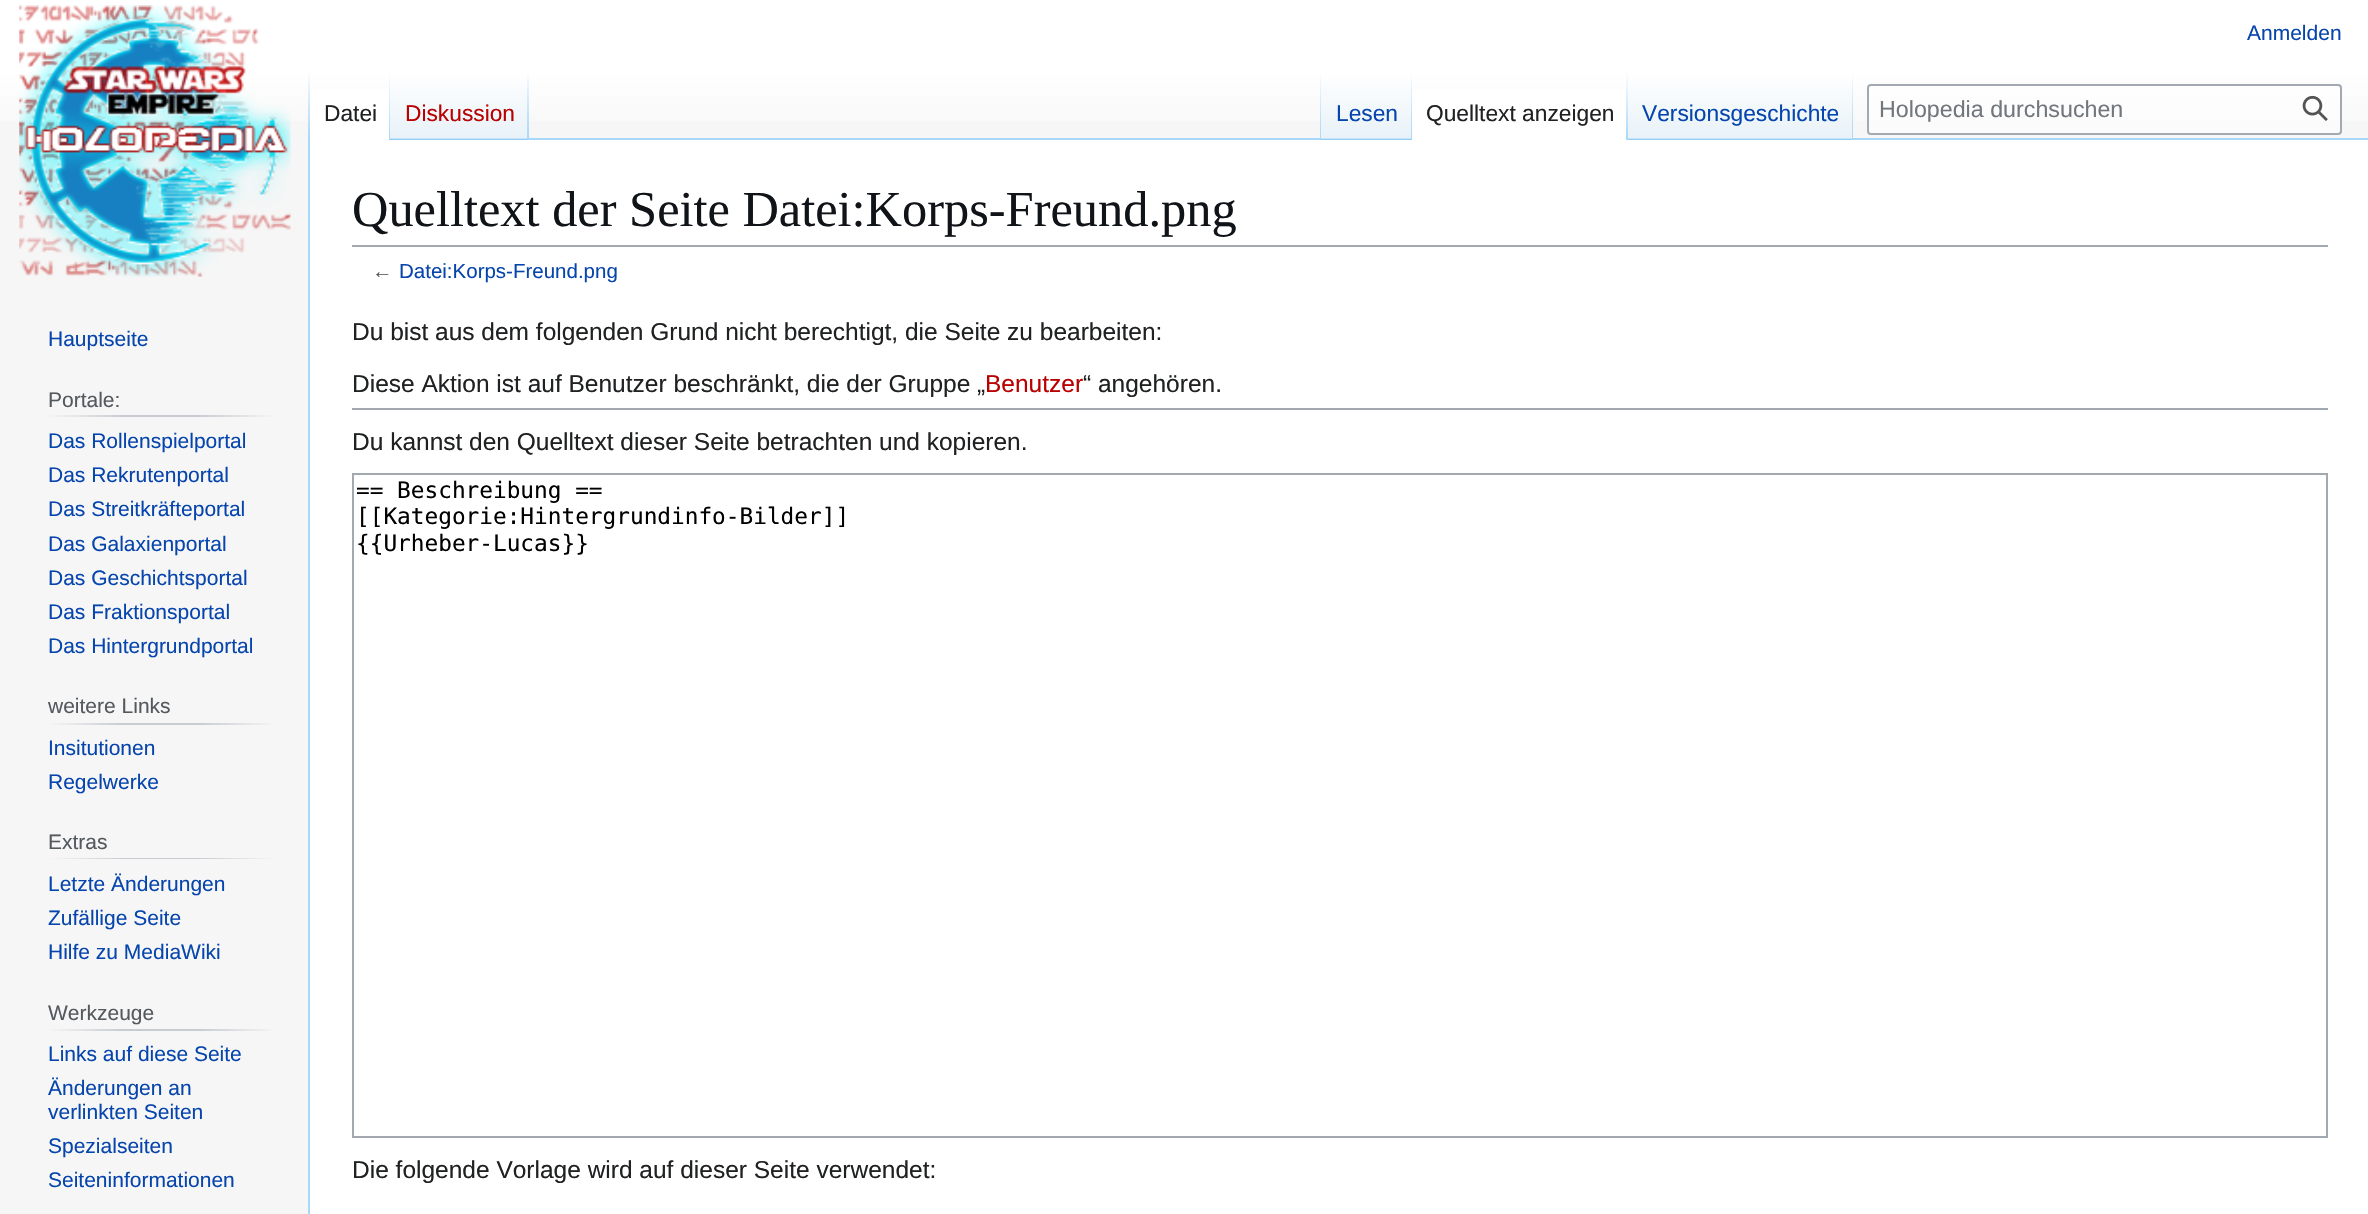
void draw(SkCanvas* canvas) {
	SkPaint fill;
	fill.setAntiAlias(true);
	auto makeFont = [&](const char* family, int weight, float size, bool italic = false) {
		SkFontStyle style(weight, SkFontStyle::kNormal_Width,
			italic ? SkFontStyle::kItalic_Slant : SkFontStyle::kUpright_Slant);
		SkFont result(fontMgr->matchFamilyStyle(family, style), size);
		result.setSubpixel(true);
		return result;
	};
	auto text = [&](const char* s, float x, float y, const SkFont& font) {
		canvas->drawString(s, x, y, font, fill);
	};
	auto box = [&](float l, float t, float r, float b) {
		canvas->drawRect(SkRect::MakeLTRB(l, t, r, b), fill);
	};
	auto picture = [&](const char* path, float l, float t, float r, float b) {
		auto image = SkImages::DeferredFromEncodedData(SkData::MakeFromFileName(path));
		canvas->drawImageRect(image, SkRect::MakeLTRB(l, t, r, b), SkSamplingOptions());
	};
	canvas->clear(0xFFF6F6F6);
	{
		const SkColor colors[] = {0xFFFFFFFF, 0xFFF6F6F6};
		const float stops[] = {0.5f, 1};
		const SkPoint ends[] = {{1185, 0}, {1185, 140}};
		fill.setShader(SkGradientShader::MakeLinear(ends, colors, stops, 2, SkTileMode::kClamp));
		fill.setAlpha(255);
	}
	box(0, 0, 2368, 121);
	fill.setShader(nullptr);
	fill.setColor(0xFFA7D7F9);
	box(308, 138, 310, 1214);
	{
		const SkColor colors[] = {0x00A7D7F9, 0xFFA7D7F9};
		const float stops[] = {0, 1};
		const SkPoint ends[] = {{309, 70}, {309, 140}};
		fill.setShader(SkGradientShader::MakeLinear(ends, colors, stops, 2, SkTileMode::kClamp));
		fill.setAlpha(255);
	}
	box(308, 70, 310, 140);
	fill.setShader(nullptr);
	fill.setColor(0xFFFFFFFF);
	box(310, 89, 389, 140);
	{
		const SkColor colors[] = {0xFFFFFFFF, 0xFFA7D7F9};
		const float stops[] = {0, 1};
		const SkPoint ends[] = {{389, 70}, {389, 140}};
		fill.setShader(SkGradientShader::MakeLinear(ends, colors, stops, 2, SkTileMode::kClamp));
		fill.setAlpha(255);
	}
	box(389, 70, 390, 140);
	{
		const SkColor colors[] = {0xFF77C1F6, 0xFFE8F2F8, 0xFFFFFFFF};
		const float stops[] = {0, 0.03f, 1};
		const SkPoint ends[] = {{459, 140}, {459, 70}};
		fill.setShader(SkGradientShader::MakeLinear(ends, colors, stops, 3, SkTileMode::kClamp));
		fill.setAlpha(255);
	}
	box(390, 80, 529, 140);
	{
		const SkColor colors[] = {0x00A7D7F9, 0xFFA7D7F9};
		const float stops[] = {0, 1};
		const SkPoint ends[] = {{528, 70}, {528, 140}};
		fill.setShader(SkGradientShader::MakeLinear(ends, colors, stops, 2, SkTileMode::kClamp));
		fill.setAlpha(255);
	}
	box(527, 70, 529, 140);
	fill.setShader(nullptr);
	fill.setColor(0xFFA7D7F9);
	box(529, 138, 2368, 140);
	{
		const SkColor colors[] = {0x00A7D7F9, 0xFFA7D7F9};
		const float stops[] = {0, 1};
		const SkPoint ends[] = {{1320, 70}, {1320, 140}};
		fill.setShader(SkGradientShader::MakeLinear(ends, colors, stops, 2, SkTileMode::kClamp));
		fill.setAlpha(255);
	}
	box(1320, 70, 1321, 140);
	{
		const SkColor colors[] = {0xFF77C1F6, 0xFFE8F2F8, 0xFFFFFFFF};
		const float stops[] = {0, 0.03f, 1};
		const SkPoint ends[] = {{1367, 140}, {1367, 70}};
		fill.setShader(SkGradientShader::MakeLinear(ends, colors, stops, 3, SkTileMode::kClamp));
		fill.setAlpha(255);
	}
	box(1321, 80, 1412, 140);
	{
		const SkColor colors[] = {0x00A7D7F9, 0xFFA7D7F9};
		const float stops[] = {0, 1};
		const SkPoint ends[] = {{1411, 70}, {1411, 140}};
		fill.setShader(SkGradientShader::MakeLinear(ends, colors, stops, 2, SkTileMode::kClamp));
		fill.setAlpha(255);
	}
	box(1411, 70, 1412, 140);
	fill.setShader(nullptr);
	fill.setColor(0xFFFFFFFF);
	box(1412, 89, 1626, 140);
	{
		const SkColor colors[] = {0xFFFFFFFF, 0xFFA7D7F9};
		const float stops[] = {0, 1};
		const SkPoint ends[] = {{1627, 70}, {1627, 140}};
		fill.setShader(SkGradientShader::MakeLinear(ends, colors, stops, 2, SkTileMode::kClamp));
		fill.setAlpha(255);
	}
	box(1626, 70, 1628, 140);
	{
		const SkColor colors[] = {0xFF77C1F6, 0xFFE8F2F8, 0xFFFFFFFF};
		const float stops[] = {0, 0.03f, 1};
		const SkPoint ends[] = {{1740, 140}, {1740, 70}};
		fill.setShader(SkGradientShader::MakeLinear(ends, colors, stops, 3, SkTileMode::kClamp));
		fill.setAlpha(255);
	}
	box(1628, 80, 1853, 140);
	{
		const SkColor colors[] = {0x00A7D7F9, 0xFFA7D7F9};
		const float stops[] = {0, 1};
		const SkPoint ends[] = {{1852, 70}, {1852, 140}};
		fill.setShader(SkGradientShader::MakeLinear(ends, colors, stops, 2, SkTileMode::kClamp));
		fill.setAlpha(255);
	}
	box(1852, 70, 1853, 140);
	fill.setShader(nullptr);
	fill.setColor(0x80FFFFFF);
	canvas->drawRoundRect(SkRect::MakeLTRB(1868, 85, 2341, 134), 3, 3, fill);
	fill.setStyle(SkPaint::kStroke_Style);
	fill.setStrokeWidth(2);
	fill.setColor(0xFFA2A9B1);
	canvas->drawRoundRect(SkRect::MakeLTRB(1868, 85, 2341, 134), 3, 3, fill);
	picture("image0.png", 2302, 95, 2328, 121);
	picture("image1.png", 19, 5, 291, 277);
	fill.setStyle(SkPaint::kFill_Style);
	{
		const SkColor colors[] = {0xFFF6F6F6, 0xFFC8CCD1, 0xFFC8CCD1, 0xFFF6F6F6};
		const float stops[] = {0, 0.33f, 0.66f, 1};
		const SkPoint ends[] = {{47, 416}, {277, 416}};
		fill.setShader(SkGradientShader::MakeLinear(ends, colors, stops, 4, SkTileMode::kClamp));
		fill.setAlpha(255);
	}
	box(47, 415, 277, 417);
	{
		const SkColor colors[] = {0xFFF6F6F6, 0xFFC8CCD1, 0xFFC8CCD1, 0xFFF6F6F6};
		const float stops[] = {0, 0.33f, 0.66f, 1};
		const SkPoint ends[] = {{47, 724}, {277, 724}};
		fill.setShader(SkGradientShader::MakeLinear(ends, colors, stops, 4, SkTileMode::kClamp));
		fill.setAlpha(255);
	}
	box(47, 723, 277, 725);
	{
		const SkColor colors[] = {0xFFF6F6F6, 0xFFC8CCD1, 0xFFC8CCD1, 0xFFF6F6F6};
		const float stops[] = {0, 0.33f, 0.66f, 1};
		const SkPoint ends[] = {{47, 858}, {277, 858}};
		fill.setShader(SkGradientShader::MakeLinear(ends, colors, stops, 4, SkTileMode::kClamp));
		fill.setAlpha(255);
	}
	box(47, 858, 277, 859);
	{
		const SkColor colors[] = {0xFFF6F6F6, 0xFFC8CCD1, 0xFFC8CCD1, 0xFFF6F6F6};
		const float stops[] = {0, 0.33f, 0.66f, 1};
		const SkPoint ends[] = {{47, 1030}, {277, 1030}};
		fill.setShader(SkGradientShader::MakeLinear(ends, colors, stops, 4, SkTileMode::kClamp));
		fill.setAlpha(255);
	}
	box(47, 1029, 277, 1031);
	fill.setShader(nullptr);
	fill.setColor(0xFFFFFFFF);
	box(310, 140, 2368, 1214);
	fill.setColor(0xFFA2A9B1);
	box(352, 245, 2328, 247);
	box(352, 408, 2328, 410);
	fill.setStyle(SkPaint::kStroke_Style);
	canvas->drawRect(SkRect::MakeLTRB(353, 474, 2327, 1137), fill);
	auto font1 = makeFont("Liberation Sans", 400, 21);
	fill.setStyle(SkPaint::kFill_Style);
	fill.setColor(0xFF0645AD);
	text("Anmelden", 2247, 40, font1);
	auto font2 = makeFont("Liberation Sans", 400, 22.75f);
	fill.setColor(0xFF202122);
	text("Datei", 324, 121, font2);
	fill.setColor(0xFFBA0000);
	text("Diskussion", 405, 121, font2);
	fill.setColor(0xFF0645AD);
	text("Lesen", 1336, 121, font2);
	fill.setColor(0xFF202122);
	text("Quelltext anzeigen", 1426, 121, font2);
	fill.setColor(0xFF0645AD);
	text("Versionsgeschichte", 1642, 121, font2);
	auto font3 = makeFont("Liberation Sans", 400, 23.25f);
	fill.setColor(0xFF72777D);
	text("Holopedia durchsuchen", 1879, 117, font3);
	fill.setColor(0xFF0645AD);
	text("Hauptseite", 48, 346, font1);
	fill.setColor(0xFF54595D);
	text("Portale:", 48, 407, font1);
	fill.setColor(0xFF0645AD);
	text("Das Rollenspielportal", 48, 448, font1);
	text("Das Rekrutenportal", 48, 482, font1);
	text("Das Streitkräfteportal", 48, 516, font1);
	text("Das Galaxienportal", 48, 551, font1);
	text("Das Geschichtsportal", 48, 585, font1);
	text("Das Fraktionsportal", 48, 619, font1);
	text("Das Hintergrundportal", 48, 653, font1);
	fill.setColor(0xFF54595D);
	text("weitere Links", 48, 713, font1);
	fill.setColor(0xFF0645AD);
	text("Insitutionen", 48, 755, font1);
	text("Regelwerke", 48, 789, font1);
	fill.setColor(0xFF54595D);
	text("Extras", 48, 849, font1);
	fill.setColor(0xFF0645AD);
	text("Letzte Änderungen", 48, 891, font1);
	text("Zufällige Seite", 48, 925, font1);
	text("Hilfe zu MediaWiki", 48, 959, font1);
	fill.setColor(0xFF54595D);
	text("Werkzeuge", 48, 1020, font1);
	fill.setColor(0xFF0645AD);
	text("Links auf diese Seite", 48, 1061, font1);
	text("Änderungen an", 48, 1095, font1);
	text("verlinkten Seiten", 48, 1119, font1);
	text("Spezialseiten", 48, 1153, font1);
	text("Seiteninformationen", 48, 1187, font1);
	auto font4 = makeFont("Liberation Serif", 400, 50.4f);
	fill.setColor(0xFF101418);
	text("Quelltext der Seite Datei:Korps-Freund.png", 352, 226, font4);
	auto font5 = makeFont("Liberation Sans", 400, 20.5f);
	fill.setColor(0xFF54595D);
	text("←", 372, 278, font5);
	fill.setColor(0xFF0645AD);
	text("Datei:Korps-Freund.png", 399, 278, font5);
	auto font6 = makeFont("Liberation Sans", 400, 24.5f);
	fill.setColor(0xFF202122);
	text("Du bist aus dem folgenden Grund nicht berechtigt, die Seite zu bearbeiten:", 352, 340, font6);
	text("Diese Aktion ist auf Benutzer beschränkt, die der Gruppe „", 352, 392, font6);
	fill.setColor(0xFFBA0000);
	text("Benutzer", 985, 392, font6);
	fill.setColor(0xFF202122);
	text("“ angehören.", 1083, 392, font6);
	text("Du kannst den Quelltext dieser Seite betrachten und kopieren.", 352, 450, font6);
	auto font7 = makeFont("DejaVu Sans Mono", 400, 22.75f);
	fill.setColor(0xFF000000);
	text("== Beschreibung ==", 356, 498, font7);
	text("[[Kategorie:Hintergrundinfo-Bilder]]", 356, 524, font7);
	text("{{Urheber-Lucas}}", 356, 551, font7);
	fill.setColor(0xFF202122);
	text("Die folgende Vorlage wird auf dieser Seite verwendet:", 352, 1178, font6);
}
